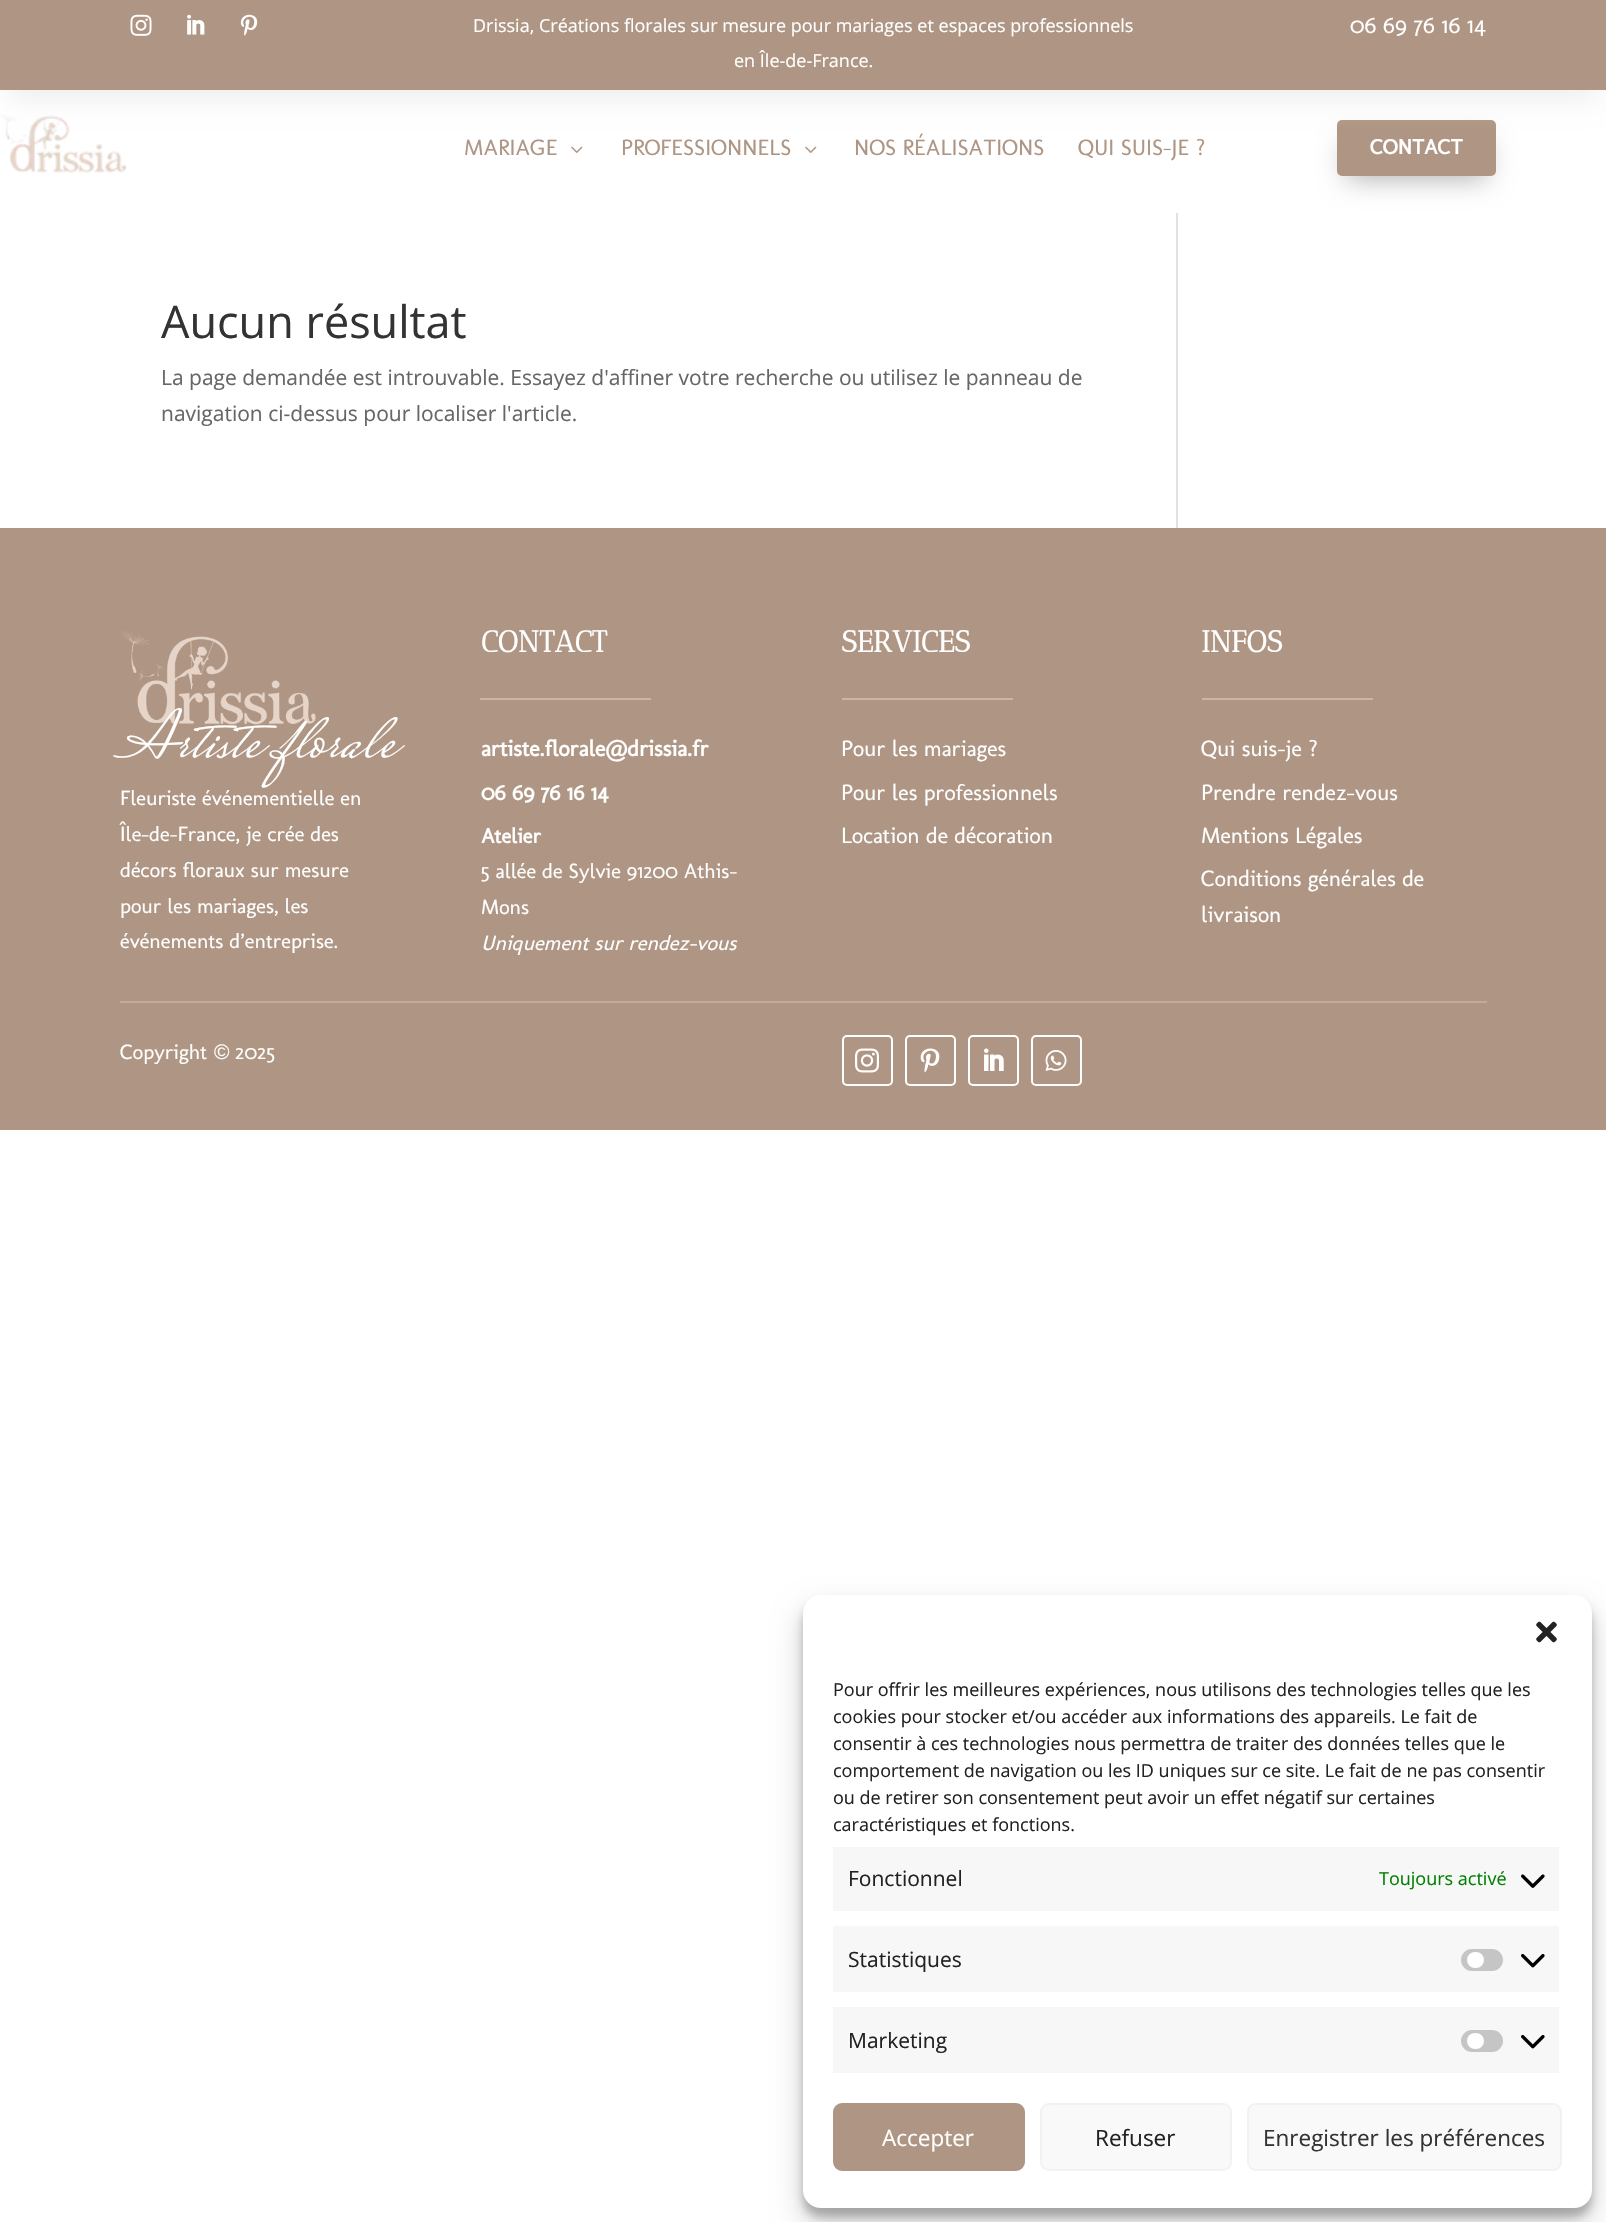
void draw(SkCanvas* canvas) {
	SkPaint fill;
	fill.setAntiAlias(true);
	auto makeFont = [&](const char* family, int weight, float size, bool italic = false) {
		SkFontStyle style(weight, SkFontStyle::kNormal_Width,
			italic ? SkFontStyle::kItalic_Slant : SkFontStyle::kUpright_Slant);
		SkFont result(fontMgr->matchFamilyStyle(family, style), size);
		result.setSubpixel(true);
		return result;
	};
	auto text = [&](const char* s, float x, float y, const SkFont& font) {
		canvas->drawString(s, x, y, font, fill);
	};
	auto box = [&](float l, float t, float r, float b) {
		canvas->drawRect(SkRect::MakeLTRB(l, t, r, b), fill);
	};
	auto roundBox = [&](float l, float t, float r, float b, float radius) {
		canvas->drawRoundRect(SkRect::MakeLTRB(l, t, r, b), radius, radius, fill);
	};
	auto picture = [&](const char* path, float l, float t, float r, float b) {
		auto image = SkImages::DeferredFromEncodedData(SkData::MakeFromFileName(path));
		canvas->drawImageRect(image, SkRect::MakeLTRB(l, t, r, b), SkSamplingOptions());
	};
	canvas->clear(0xFFFFFFFF);
	picture("image3.png", 1, 114, 126, 173);
	fill.setColor(0x4D000000);
	fill.setMaskFilter(SkMaskFilter::MakeBlur(kNormal_SkBlurStyle, 13.5f));
	canvas->drawRect(SkRect::MakeLTRB(1346, 141, 1487, 179), fill);
	fill.setMaskFilter(nullptr);
	fill.setColor(0xFFAF9684);
	roundBox(1337, 120, 1496, 176, 5);
	fill.setColor(0xFFEEEEEE);
	fill.setMaskFilter(SkMaskFilter::MakeBlur(kNormal_SkBlurStyle, 13.5f));
	canvas->drawRect(SkRect::MakeLTRB(9, 24, 1598, 99), fill);
	fill.setMaskFilter(nullptr);
	fill.setColor(0xFFAF9684);
	box(0, 0, 1606, 90);
	picture("image0.png", 130, 14, 152, 36);
	picture("image1.png", 187, 14, 205, 35);
	picture("image2.png", 240, 14, 258, 36);
	picture("image4.png", 571, 146, 583, 153);
	picture("image4.png", 805, 146, 817, 153);
	fill.setColor(0xFFE2E2E2);
	box(1176, 213, 1178, 528);
	fill.setColor(0xFFAF9684);
	box(0, 528, 1606, 1130);
	fill.setColor(0xFFBFAB9D);
	box(120, 1001, 1487, 1003);
	picture("image5.png", 121, 631, 316, 743);
	fill.setColor(0xFFC7B6A9);
	box(480, 698, 651, 700);
	box(842, 698, 1013, 700);
	box(1202, 698, 1373, 700);
	fill.setStyle(SkPaint::kStroke_Style);
	fill.setStrokeWidth(2);
	fill.setColor(0xFFFFFFFF);
	canvas->drawRoundRect(SkRect::MakeLTRB(843, 1036, 892, 1085), 4, 4, fill);
	picture("image6.png", 855, 1048, 879, 1073);
	canvas->drawRoundRect(SkRect::MakeLTRB(906, 1036, 955, 1085), 4, 4, fill);
	picture("image7.png", 920, 1048, 940, 1073);
	canvas->drawRoundRect(SkRect::MakeLTRB(969, 1036, 1018, 1085), 4, 4, fill);
	picture("image8.png", 984, 1048, 1004, 1071);
	canvas->drawRoundRect(SkRect::MakeLTRB(1032, 1036, 1081, 1085), 4, 4, fill);
	picture("image9.png", 1045, 1050, 1067, 1071);
	fill.setStyle(SkPaint::kFill_Style);
	fill.setColor(0x3B000000);
	fill.setMaskFilter(SkMaskFilter::MakeBlur(kNormal_SkBlurStyle, 4.5f));
	canvas->drawRoundRect(SkRect::MakeLTRB(803, 1604, 1592, 2217), 18, 18, fill);
	fill.setMaskFilter(nullptr);
	fill.setColor(0x30000000);
	fill.setMaskFilter(SkMaskFilter::MakeBlur(kNormal_SkBlurStyle, 15));
	canvas->drawRoundRect(SkRect::MakeLTRB(803, 1610, 1592, 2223), 18, 18, fill);
	fill.setMaskFilter(nullptr);
	fill.setColor(0xFFFFFFFF);
	roundBox(803, 1595, 1592, 2208, 18);
	picture("image10.png", 1536, 1621, 1557, 1643);
	fill.setColor(0xFFF7F7F7);
	box(833, 1847, 1559, 1911);
	picture("image11.png", 1521, 1874, 1545, 1888);
	box(833, 1926, 1559, 1992);
	fill.setColor(0xFFC5C5C5);
	roundBox(1461, 1949, 1503, 1971, 11);
	fill.setColor(0xFFFFFFFF);
	roundBox(1467, 1952, 1484, 1968, 8);
	picture("image12.png", 1521, 1954, 1545, 1968);
	fill.setColor(0xFFF7F7F7);
	box(833, 2007, 1559, 2073);
	fill.setColor(0xFFC5C5C5);
	roundBox(1461, 2030, 1503, 2052, 11);
	fill.setColor(0xFFFFFFFF);
	roundBox(1467, 2033, 1484, 2049, 8);
	picture("image12.png", 1521, 2035, 1545, 2049);
	fill.setColor(0xFFAF9684);
	canvas->drawRoundRect(SkRect::MakeLTRB(834, 2104, 1024, 2170), 8, 8, fill);
	fill.setStyle(SkPaint::kStroke_Style);
	canvas->drawRoundRect(SkRect::MakeLTRB(834, 2104, 1024, 2170), 8, 8, fill);
	fill.setStyle(SkPaint::kFill_Style);
	fill.setColor(0xFFF9F9F9);
	canvas->drawRoundRect(SkRect::MakeLTRB(1041, 2104, 1231, 2170), 8, 8, fill);
	fill.setStyle(SkPaint::kStroke_Style);
	fill.setColor(0xFFF2F2F2);
	canvas->drawRoundRect(SkRect::MakeLTRB(1041, 2104, 1231, 2170), 8, 8, fill);
	fill.setStyle(SkPaint::kFill_Style);
	fill.setColor(0xFFF9F9F9);
	canvas->drawRoundRect(SkRect::MakeLTRB(1248, 2104, 1561, 2170), 8, 8, fill);
	fill.setStyle(SkPaint::kStroke_Style);
	fill.setColor(0xFFF2F2F2);
	canvas->drawRoundRect(SkRect::MakeLTRB(1248, 2104, 1561, 2170), 8, 8, fill);
	auto font1 = makeFont("Open Sans", 400, 18);
	fill.setStyle(SkPaint::kFill_Style);
	fill.setColor(0xFFFFFFFF);
	text("Drissia, Créations florales sur mesure pour mariages et espaces professionnels", 473, 32, font1);
	text("en Île-de-France.", 734, 67, font1);
	auto font2 = makeFont("Molengo", 400, 24);
	text("06 69 76 16 14", 1350, 33, font2);
	auto font3 = makeFont("Molengo", 400, 22.5f);
	fill.setColor(0xFFAF9684);
	text("MARIAGE", 464, 155, font3);
	text("PROFESSIONNELS", 621, 155, font3);
	text("NOS RÉALISATIONS", 854, 155, font3);
	text("QUI SUIS-JE ?", 1078, 155, font3);
	auto font4 = makeFont("Molengo", 700, 21);
	fill.setColor(0xFFFFFFFF);
	text("CONTACT", 1370, 154, font4);
	auto font5 = makeFont("Open Sans", 400, 45);
	fill.setColor(0xFF333333);
	text("Aucun résultat", 161, 338, font5);
	auto font6 = makeFont("Open Sans", 400, 21);
	fill.setColor(0xFF666666);
	text("La page demandée est introuvable. Essayez d'affiner votre recherche ou utilisez le panneau de", 161, 385, font6);
	text("navigation ci-dessus pour localiser l'article.", 161, 421, font6);
	auto font7 = makeFont("Mrs Saint Delafield", 400, 69);
	fill.setColor(0xFFFFFFFF);
	text("Artiste florale", 120, 757, font7);
	auto font8 = makeFont("Molengo", 400, 21);
	text("Fleuriste événementielle en", 120, 805, font8);
	text("Île-de-France, je crée des", 120, 841, font8);
	text("décors floraux sur mesure", 120, 877, font8);
	text("pour les mariages, les", 120, 913, font8);
	text("événements d’entreprise.", 120, 948, font8);
	auto font9 = makeFont("Antic Didone", 700, 30);
	text("CONTACT", 481, 652, font9);
	auto font10 = makeFont("Molengo", 700, 22.5f);
	text("artiste.florale@drissia.fr", 481, 756, font10);
	text("06 69 76 16 14", 481, 800, font10);
	text("Atelier", 481, 843, font4);
	text("5 allée de Sylvie 91200 Athis-", 481, 878, font8);
	text("Mons", 481, 914, font8);
	auto font11 = makeFont("Molengo", 400, 21, true);
	text("Uniquement sur rendez-vous", 481, 950, font11);
	text("SERVICES", 841, 652, font9);
	text("Pour les mariages", 841, 756, font3);
	text("Pour les professionnels", 841, 800, font3);
	text("Location de décoration", 841, 843, font3);
	text("INFOS", 1201, 652, font9);
	text("Qui suis-je ?", 1201, 756, font3);
	text("Prendre rendez-vous", 1201, 800, font3);
	text("Mentions Légales", 1201, 843, font3);
	text("Conditions générales de", 1201, 886, font3);
	text("livraison", 1201, 922, font3);
	text("Copyright", 120, 1059, font8);
	auto font12 = makeFont("Liberation Sans", 400, 21);
	text("©", 214, 1059, font12);
	text("2025", 235, 1059, font8);
	fill.setColor(0xFF222222);
	text("Pour offrir les meilleures expériences, nous utilisons des technologies telles que les", 833, 1696, font1);
	text("cookies pour stocker et/ou accéder aux informations des appareils. Le fait de", 833, 1723, font1);
	text("consentir à ces technologies nous permettra de traiter des données telles que le", 833, 1750, font1);
	text("comportement de navigation ou les ID uniques sur ce site. Le fait de ne pas consentir", 833, 1777, font1);
	text("ou de retirer son consentement peut avoir un effet négatif sur certaines", 833, 1804, font1);
	text("caractéristiques et fonctions.", 833, 1831, font1);
	text("Fonctionnel", 848, 1886, font6);
	fill.setColor(0xFF008000);
	text("Toujours activé", 1379, 1885, font1);
	fill.setColor(0xFF222222);
	text("Statistiques", 848, 1967, font6);
	text("Marketing", 848, 2048, font6);
	auto font13 = makeFont("Open Sans", 400, 22.5f);
	fill.setColor(0xFFFFFFFF);
	text("Accepter", 882, 2146, font13);
	fill.setColor(0xFF222222);
	text("Refuser", 1095, 2146, font13);
	fill.setColor(0xFF333333);
	text("Enregistrer les préférences", 1263, 2146, font13);
}
